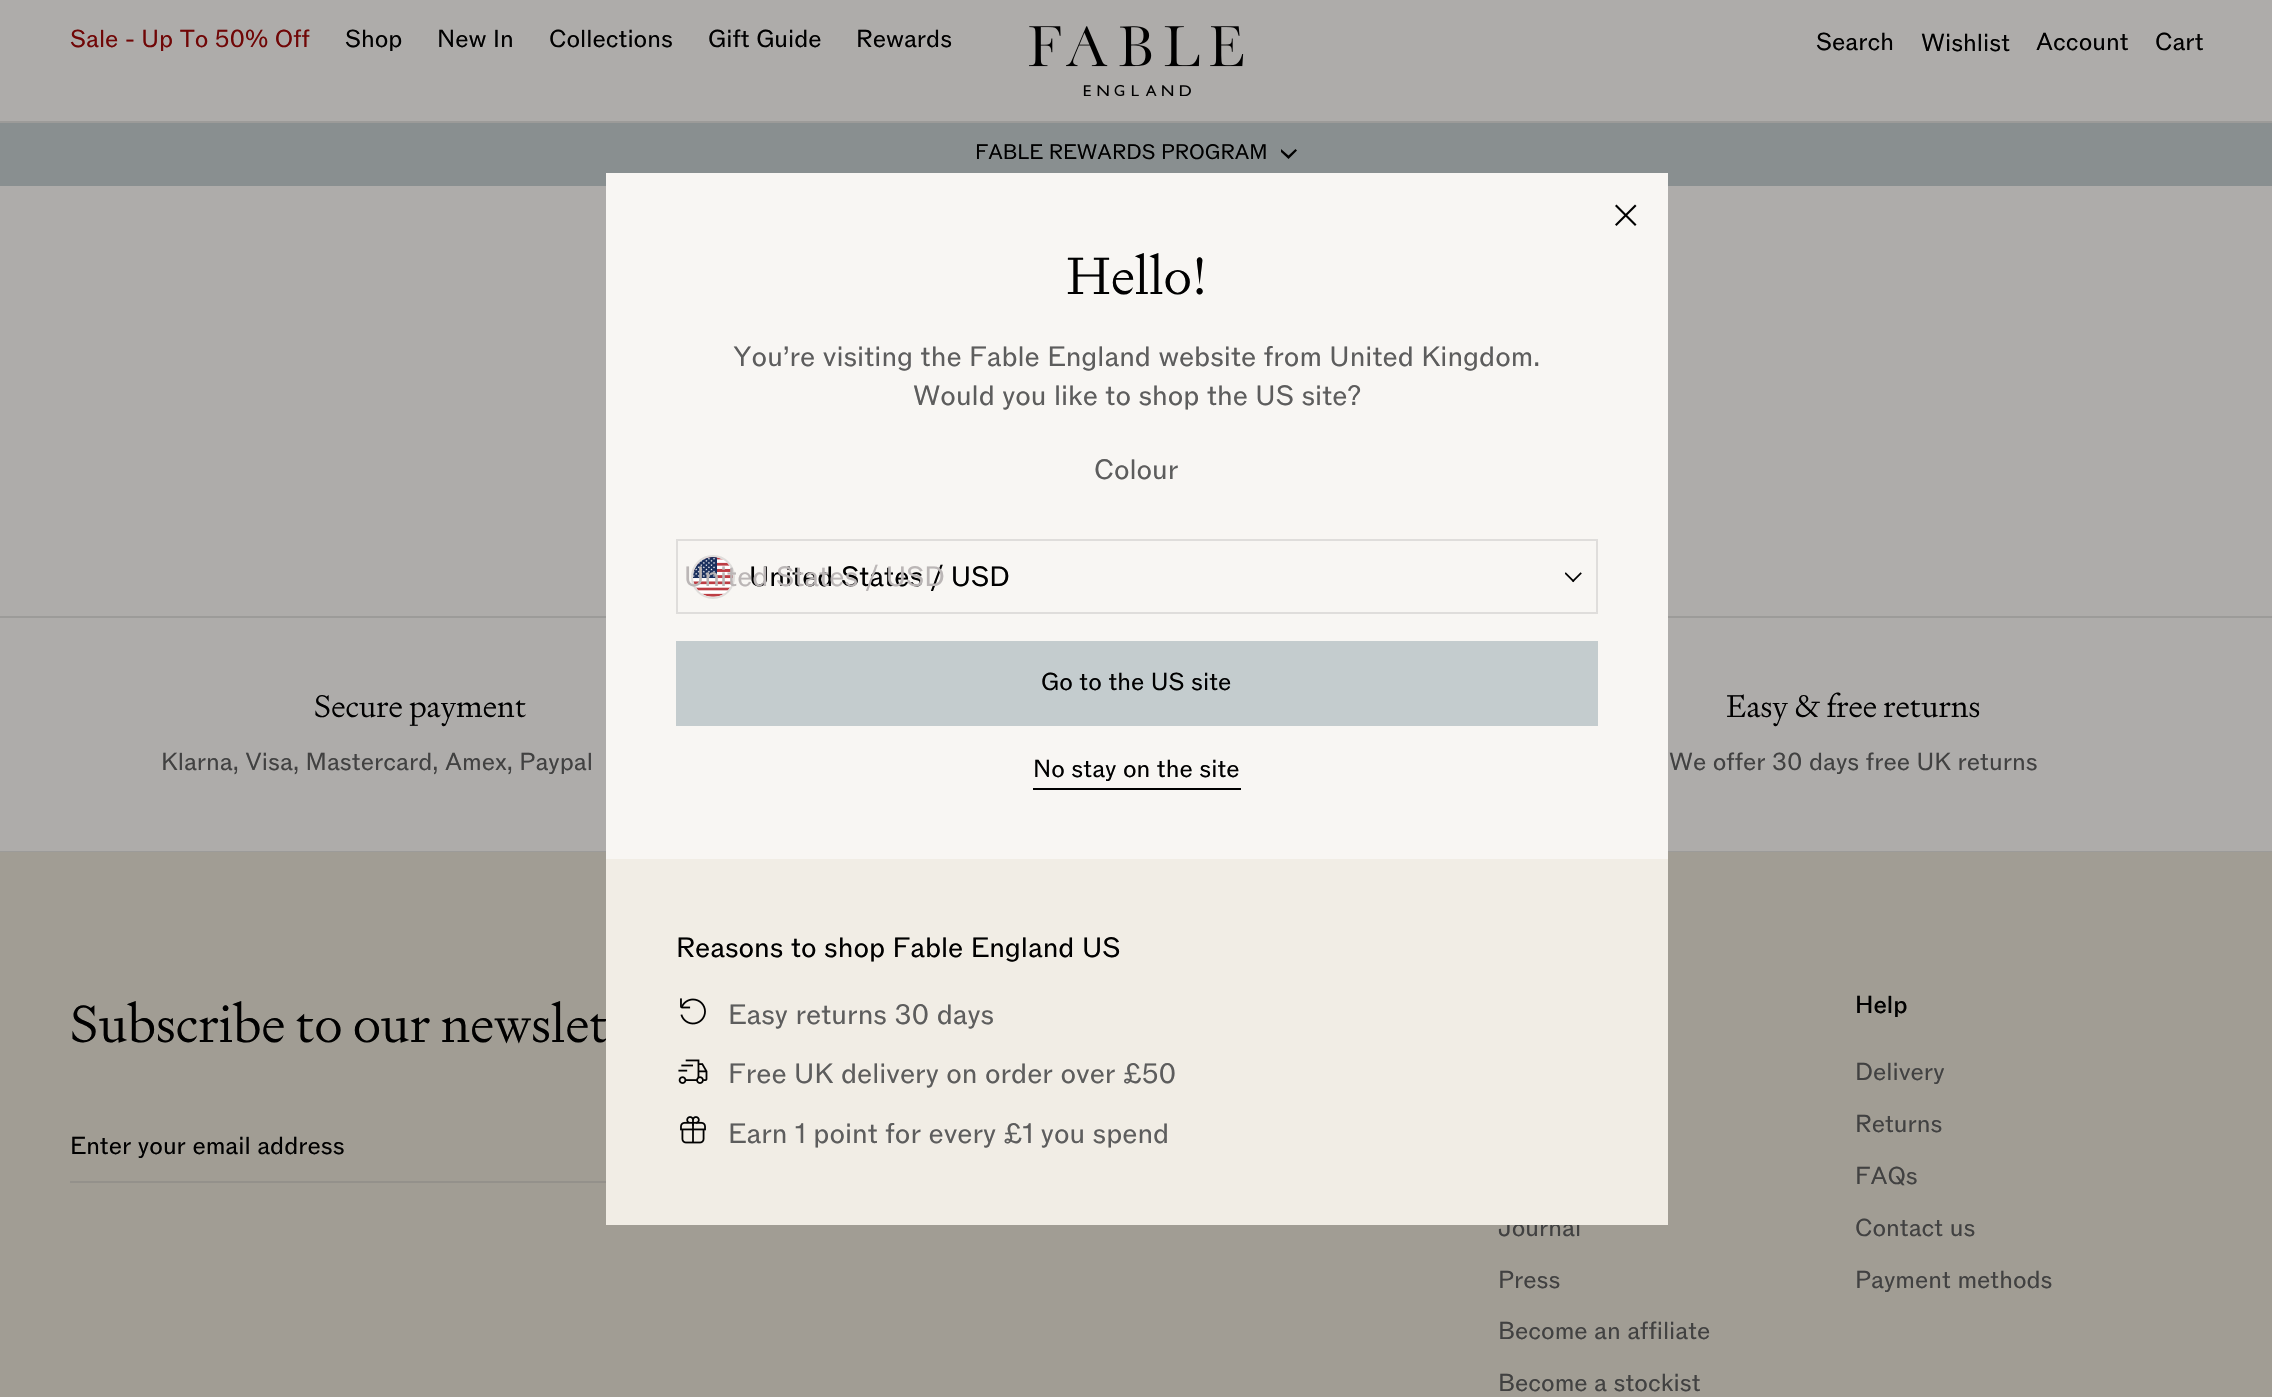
void draw(SkCanvas* canvas) {
	SkPaint fill;
	fill.setAntiAlias(true);
	auto makeFont = [&](const char* family, int weight, float size, bool italic = false) {
		SkFontStyle style(weight, SkFontStyle::kNormal_Width,
			italic ? SkFontStyle::kItalic_Slant : SkFontStyle::kUpright_Slant);
		SkFont result(fontMgr->matchFamilyStyle(family, style), size);
		result.setSubpixel(true);
		return result;
	};
	auto text = [&](const char* s, float x, float y, const SkFont& font) {
		canvas->drawString(s, x, y, font, fill);
	};
	auto box = [&](float l, float t, float r, float b) {
		canvas->drawRect(SkRect::MakeLTRB(l, t, r, b), fill);
	};
	auto picture = [&](const char* path, float l, float t, float r, float b) {
		auto image = SkImages::DeferredFromEncodedData(SkData::MakeFromFileName(path));
		canvas->drawImageRect(image, SkRect::MakeLTRB(l, t, r, b), SkSamplingOptions());
	};
	canvas->clear(0xFFAEACAA);
	fill.setColor(0xFF9C9B99);
	box(0, 121, 2272, 123);
	picture("image0.png", 1029, 26, 1244, 96);
	fill.setColor(0xFF898F90);
	box(0, 123, 2272, 186);
	canvas->save();
	canvas->clipRect(SkRect::MakeLTRB(1281, 147, 1299, 159));
	fill.setColor(0xFF000000);
	canvas->drawPath(SkPathBuilder().moveTo(1288.5f, 155.5f).lineTo(1295.5f, 149).lineTo(1297, 150.5f).lineTo(1288.5f, 159).lineTo(1279.5f, 150.5f).lineTo(1281, 149).close().detach(), fill);
	canvas->restore();
	fill.setColor(0xFF9C9B99);
	box(0, 616, 2272, 618);
	box(0, 851, 2272, 852);
	fill.setColor(0xFFA19D94);
	box(0, 852, 2272, 1397);
	fill.setColor(0xFFF8F6F3);
	box(606, 173, 1668, 859);
	fill.setColor(0xFF000000);
	canvas->drawPath(SkPathBuilder().moveTo(1616.5f, 204.5f).lineTo(1636.5f, 224.5f).lineTo(1635, 226).lineTo(1615, 206).close().detach(), fill);
	canvas->drawPath(SkPathBuilder().moveTo(1636.5f, 206).lineTo(1616.5f, 226).lineTo(1615, 224.5f).lineTo(1635, 204.5f).close().detach(), fill);
	fill.setStyle(SkPaint::kStroke_Style);
	fill.setStrokeWidth(2);
	fill.setColor(0xFFDFDDDB);
	canvas->drawRect(SkRect::MakeLTRB(677, 540, 1597, 613), fill);
	canvas->drawCircle(713, 577, 21, fill);
	picture("image1.png", 693, 557, 733, 597);
	picture("image2.png", 1565, 572, 1582, 583);
	fill.setStyle(SkPaint::kFill_Style);
	fill.setColor(0xFFC4CCCE);
	box(676, 641, 1598, 726);
	fill.setColor(0xFF000000);
	box(1033, 788, 1241, 790);
	fill.setColor(0xFF94918B);
	box(70, 1181, 606, 1183);
	auto font1 = makeFont("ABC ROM", 400, 24.5f);
	fill.setColor(0xFF700606);
	text("Sale - Up To 50% Off", 70, 47, font1);
	fill.setColor(0xFF000000);
	text("Shop", 345, 47, font1);
	text("New In", 437, 47, font1);
	text("Collections", 549, 47, font1);
	text("Gift Guide", 708, 47, font1);
	text("Rewards", 856, 47, font1);
	text("Search", 1816, 50, font1);
	text("Wishlist", 1921, 51, font1);
	text("Account", 2036, 50, font1);
	text("Cart", 2155, 50, font1);
	auto font2 = makeFont("ABC ROM", 400, 21);
	text("FABLE REWARDS PROGRAM", 975, 159, font2);
	auto font3 = makeFont("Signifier", 300, 52.5f);
	text("Hello!", 1066, 294, font3);
	auto font4 = makeFont("ABC ROM", 400, 28);
	fill.setColor(0xFF5D5D5D);
	text("You’re visiting the Fable England website from United Kingdom.", 733, 366, font4);
	text("Would you like to shop the US site?", 913, 405, font4);
	text("Colour", 1094, 479, font4);
	fill.setColor(0xFF000000);
	text("United States / USD", 749, 586, font4);
	fill.setColor(0xFFBBB6B6);
	text("United States / USD", 684, 586, font4);
	fill.setColor(0xFF000000);
	text("Go to the US site", 1041, 690, font1);
	text("No stay on the site", 1033, 777, font1);
	auto font5 = makeFont("Signifier", 300, 31.5f);
	text("Secure payment", 314, 717, font5);
	fill.setColor(0xFF414141);
	text("Klarna, Visa, Mastercard, Amex, Paypal", 161, 770, font1);
	fill.setColor(0xFF000000);
	text("Easy & free returns", 1726, 717, font5);
	fill.setColor(0xFF414141);
	text("We offer 30 days free UK returns", 1669, 770, font1);
	fill.setColor(0xFF000000);
	text("Subscribe to our newslet", 70, 1042, font3);
	text("Enter your email address", 70, 1154, font1);
	auto font6 = makeFont("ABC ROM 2", 400, 24.5f);
	text("Help", 1855, 1013, font6);
	fill.setColor(0xFF414141);
	text("Delivery", 1855, 1080, font1);
	text("Returns", 1855, 1132, font1);
	text("FAQs", 1855, 1184, font1);
	text("Contact us", 1855, 1236, font1);
	text("Payment methods", 1855, 1288, font1);
	text("Journal", 1498, 1236, font1);
	fill.setColor(0xFFF1EDE5);
	box(606, 859, 1668, 1225);
	fill.setColor(0xFF5D5D5D);
	text("Earn 1 point for every £1 you spend", 728, 1143, font4);
	picture("image5.png", 680, 1116, 706, 1144);
	text("Free UK delivery on order over £50", 728, 1083, font4);
	picture("image4.png", 678, 1059, 708, 1084);
	text("Easy returns 30 days", 728, 1024, font4);
	picture("image3.png", 680, 998, 706, 1025);
	fill.setColor(0xFF000000);
	text("Reasons to shop Fable England US", 676, 957, font4);
	fill.setColor(0xFF414141);
	text("Press", 1498, 1288, font1);
	text("Become an affiliate", 1498, 1339, font1);
	text("Become a stockist", 1498, 1391, font1);
}
